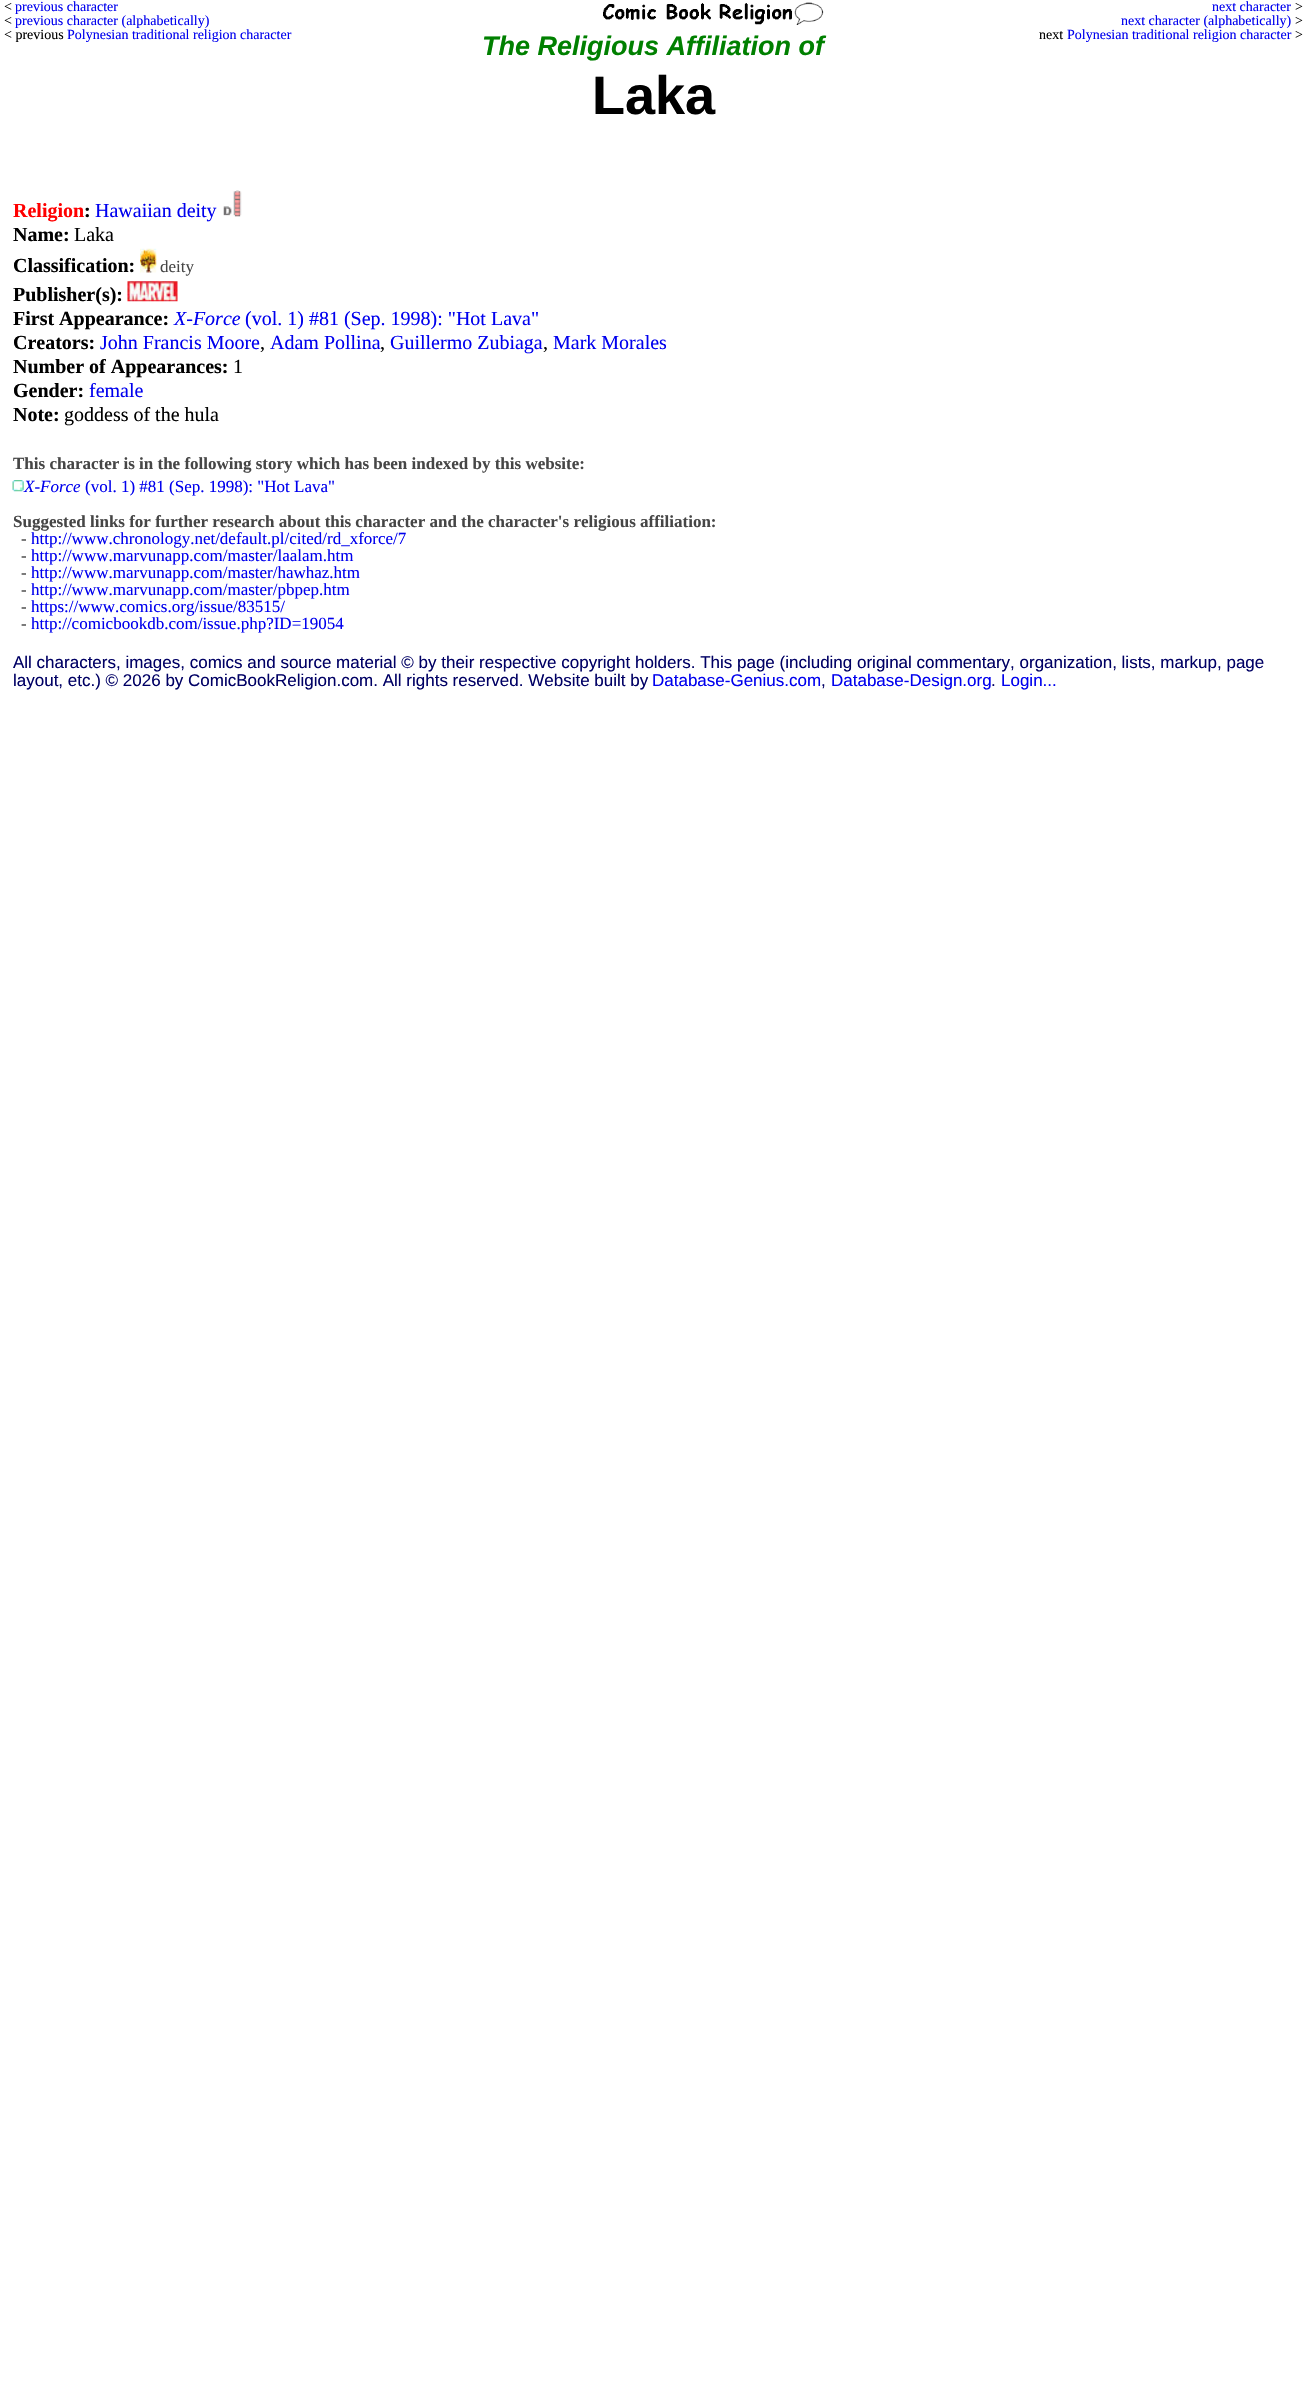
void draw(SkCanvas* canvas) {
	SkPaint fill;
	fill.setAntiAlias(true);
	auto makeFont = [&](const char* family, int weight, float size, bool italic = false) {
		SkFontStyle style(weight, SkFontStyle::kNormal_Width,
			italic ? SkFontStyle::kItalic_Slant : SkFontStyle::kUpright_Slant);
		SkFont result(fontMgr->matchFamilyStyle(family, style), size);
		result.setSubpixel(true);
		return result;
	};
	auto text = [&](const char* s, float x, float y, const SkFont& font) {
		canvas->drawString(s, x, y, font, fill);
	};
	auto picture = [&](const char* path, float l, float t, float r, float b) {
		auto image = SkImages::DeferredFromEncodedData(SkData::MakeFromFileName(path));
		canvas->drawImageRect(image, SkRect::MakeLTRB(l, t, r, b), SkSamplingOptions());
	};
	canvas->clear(0xFFFFFFFF);
	picture("image0.png", 603, 2, 824, 25);
	picture("image1.png", 223, 190, 242, 217);
	picture("image2.png", 140, 248, 157, 273);
	picture("image3.png", 127, 281, 178, 302);
	picture("image4.png", 12, 480, 24, 492);
	auto font1 = makeFont("Liberation Serif", 400, 14);
	fill.setColor(0xFF000000);
	text("<", 4, 11, font1);
	fill.setColor(0xFF0000EE);
	text("previous character", 15, 11, font1);
	fill.setColor(0xFF000000);
	text("<", 4, 25, font1);
	fill.setColor(0xFF0000EE);
	text("previous character (alphabetically)", 15, 25, font1);
	fill.setColor(0xFF000000);
	text("< previous", 4, 39, font1);
	fill.setColor(0xFF0000EE);
	text("Polynesian traditional religion character", 67, 39, font1);
	text("next character", 1212, 11, font1);
	fill.setColor(0xFF000000);
	text(">", 1295, 11, font1);
	fill.setColor(0xFF0000EE);
	text("next character (alphabetically)", 1121, 25, font1);
	fill.setColor(0xFF000000);
	text(">", 1295, 25, font1);
	text("next", 1039, 39, font1);
	fill.setColor(0xFF0000EE);
	text("Polynesian traditional religion character", 1067, 39, font1);
	fill.setColor(0xFF000000);
	text(">", 1295, 39, font1);
	auto font2 = makeFont("Liberation Sans", 700, 27, true);
	fill.setColor(0xFF008000);
	text("The Religious Affiliation of", 482, 55, font2);
	auto font3 = makeFont("Liberation Sans", 700, 54);
	fill.setColor(0xFF000000);
	text("Laka", 592, 114, font3);
	auto font4 = makeFont("Liberation Serif", 700, 20);
	fill.setColor(0xFFFF0000);
	text("Religion", 13, 217, font4);
	fill.setColor(0xFF000000);
	text(":", 84, 217, font4);
	auto font5 = makeFont("Liberation Serif", 400, 20);
	fill.setColor(0xFF0000EE);
	text("Hawaiian deity", 95, 217, font5);
	fill.setColor(0xFF000000);
	text("Name:", 13, 241, font4);
	text("Laka", 74, 241, font5);
	text("Classification:", 13, 272, font4);
	auto font6 = makeFont("Liberation Serif", 400, 17);
	fill.setColor(0xFF464646);
	text("deity", 160, 272, font6);
	fill.setColor(0xFF000000);
	text("Publisher(s):", 13, 301, font4);
	text("First Appearance:", 13, 325, font4);
	auto font7 = makeFont("Liberation Serif", 400, 20, true);
	fill.setColor(0xFF0000EE);
	text("X-Force", 174, 325, font7);
	text("(vol. 1) #81 (Sep. 1998): \"Hot Lava\"", 245, 325, font5);
	fill.setColor(0xFF000000);
	text("Creators:", 13, 349, font4);
	fill.setColor(0xFF0000EE);
	text("John Francis Moore", 100, 349, font5);
	fill.setColor(0xFF000000);
	text(",", 260, 349, font5);
	fill.setColor(0xFF0000EE);
	text("Adam Pollina", 270, 349, font5);
	fill.setColor(0xFF000000);
	text(",", 380, 349, font5);
	fill.setColor(0xFF0000EE);
	text("Guillermo Zubiaga", 390, 349, font5);
	fill.setColor(0xFF000000);
	text(",", 543, 349, font5);
	fill.setColor(0xFF0000EE);
	text("Mark Morales", 553, 349, font5);
	fill.setColor(0xFF000000);
	text("Number of Appearances:", 13, 373, font4);
	text("1", 233, 373, font5);
	text("Gender:", 13, 397, font4);
	fill.setColor(0xFF0000EE);
	text("female", 89, 397, font5);
	fill.setColor(0xFF000000);
	text("Note:", 13, 421, font4);
	text("goddess of the hula", 64, 421, font5);
	auto font8 = makeFont("Liberation Serif", 700, 17);
	fill.setColor(0xFF464646);
	text("This character is in the following story which has been indexed by this website:", 13, 469, font8);
	auto font9 = makeFont("Liberation Serif", 400, 17, true);
	fill.setColor(0xFF0000EE);
	text("X-Force", 24, 492, font9);
	text("(vol. 1) #81 (Sep. 1998): \"Hot Lava\"", 85, 492, font6);
	fill.setColor(0xFF464646);
	text("Suggested links for further research about this character and the character's religious affiliation:", 13, 527, font8);
	text("-", 21, 544, font6);
	fill.setColor(0xFF0000EE);
	text("http://www.chronology.net/default.pl/cited/rd_xforce/7", 31, 544, font6);
	fill.setColor(0xFF464646);
	text("-", 21, 561, font6);
	fill.setColor(0xFF0000EE);
	text("http://www.marvunapp.com/master/laalam.htm", 31, 561, font6);
	fill.setColor(0xFF464646);
	text("-", 21, 578, font6);
	fill.setColor(0xFF0000EE);
	text("http://www.marvunapp.com/master/hawhaz.htm", 31, 578, font6);
	fill.setColor(0xFF464646);
	text("-", 21, 595, font6);
	fill.setColor(0xFF0000EE);
	text("http://www.marvunapp.com/master/pbpep.htm", 31, 595, font6);
	fill.setColor(0xFF464646);
	text("-", 21, 612, font6);
	fill.setColor(0xFF0000EE);
	text("https://www.comics.org/issue/83515/", 31, 612, font6);
	fill.setColor(0xFF464646);
	text("-", 21, 629, font6);
	fill.setColor(0xFF0000EE);
	text("http://comicbookdb.com/issue.php?ID=19054", 31, 629, font6);
	auto font10 = makeFont("Liberation Sans", 400, 17);
	fill.setColor(0xFF000064);
	text("All characters, images, comics and source material © by their respective copyright holders. This page (including original commentary, organization, lists, markup, page", 13, 668, font10);
	text("layout, etc.) © 2026 by ComicBookReligion.com. All rights reserved. Website built by", 13, 686, font10);
	fill.setColor(0xFF0000EE);
	text("Database-Genius.com", 652, 686, font10);
	fill.setColor(0xFF000064);
	text(",", 821, 686, font10);
	fill.setColor(0xFF0000EE);
	text("Database-Design.org", 831, 686, font10);
	fill.setColor(0xFF000064);
	text(".", 991, 686, font10);
	fill.setColor(0xFF0000EE);
	text("Login...", 1001, 686, font10);
}
